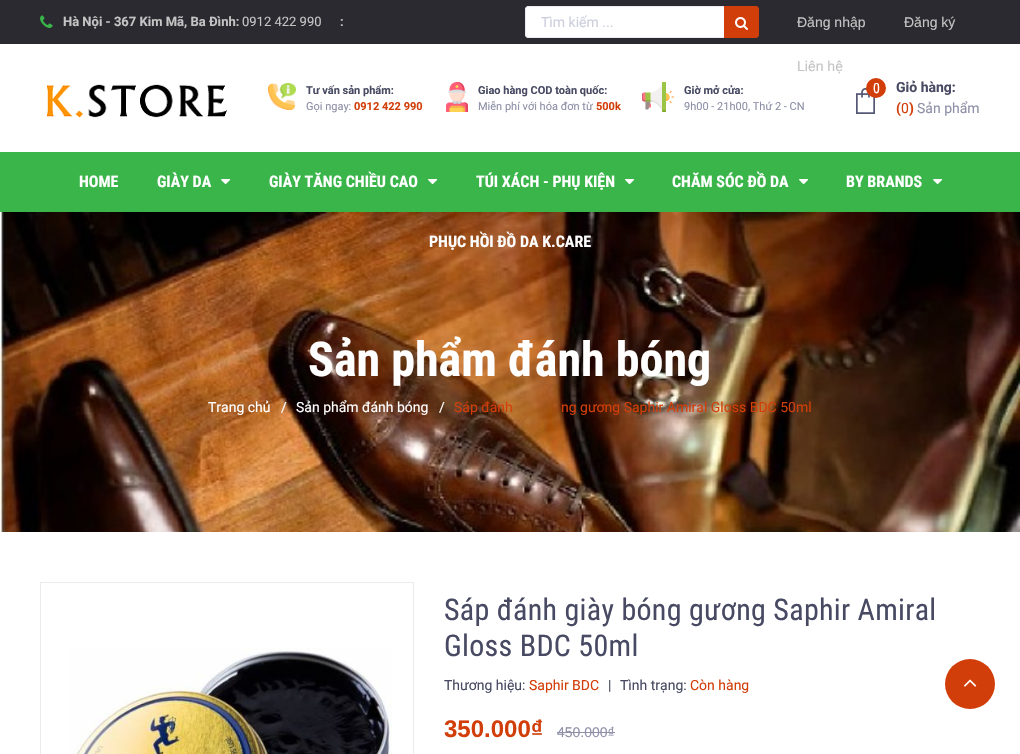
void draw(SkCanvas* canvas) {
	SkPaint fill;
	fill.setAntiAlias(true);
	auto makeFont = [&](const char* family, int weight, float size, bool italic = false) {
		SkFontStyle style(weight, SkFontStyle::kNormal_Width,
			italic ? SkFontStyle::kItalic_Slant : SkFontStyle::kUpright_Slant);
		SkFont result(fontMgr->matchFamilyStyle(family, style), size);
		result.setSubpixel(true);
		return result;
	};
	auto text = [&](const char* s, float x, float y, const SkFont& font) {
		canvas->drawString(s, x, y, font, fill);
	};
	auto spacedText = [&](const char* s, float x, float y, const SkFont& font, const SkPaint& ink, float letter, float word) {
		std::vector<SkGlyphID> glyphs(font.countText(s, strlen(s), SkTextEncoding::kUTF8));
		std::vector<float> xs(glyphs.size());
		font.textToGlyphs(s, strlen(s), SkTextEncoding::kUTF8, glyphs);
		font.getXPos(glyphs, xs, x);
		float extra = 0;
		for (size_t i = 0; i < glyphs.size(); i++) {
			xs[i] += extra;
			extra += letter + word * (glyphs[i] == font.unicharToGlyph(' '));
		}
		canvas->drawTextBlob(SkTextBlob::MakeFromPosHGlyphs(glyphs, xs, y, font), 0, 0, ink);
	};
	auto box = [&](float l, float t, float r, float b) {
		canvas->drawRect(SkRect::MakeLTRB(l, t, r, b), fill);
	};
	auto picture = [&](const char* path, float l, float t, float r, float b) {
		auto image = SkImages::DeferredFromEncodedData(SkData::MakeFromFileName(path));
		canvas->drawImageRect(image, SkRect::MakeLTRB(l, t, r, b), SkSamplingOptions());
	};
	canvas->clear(0xFFFFFFFF);
	fill.setColor(0xFF2A2A30);
	box(0, 0, 1020, 44);
	picture("image0.png", 40, 15, 53, 28);
	fill.setColor(0xFFFFFFFF);
	canvas->drawPath(SkPathBuilder().moveTo(528, 6.5f).lineTo(724.5f, 6.5f).lineTo(724.5f, 37.5f).lineTo(528, 37.5f).cubicTo(526.5f, 37.5f, 525.5f, 36.5f, 525.5f, 35).lineTo(525.5f, 9).cubicTo(525.5f, 7.5f, 526.5f, 6.5f, 528, 6.5f).close().detach(), fill);
	fill.setStyle(SkPaint::kStroke_Style);
	fill.setStrokeWidth(1);
	fill.setColor(0xFFEAEBF3);
	canvas->drawPath(SkPathBuilder().moveTo(528, 6.5f).lineTo(724.5f, 6.5f).lineTo(724.5f, 37.5f).lineTo(528, 37.5f).cubicTo(526.5f, 37.5f, 525.5f, 36.5f, 525.5f, 35).lineTo(525.5f, 9).cubicTo(525.5f, 7.5f, 526.5f, 6.5f, 528, 6.5f).close().detach(), fill);
	fill.setStyle(SkPaint::kFill_Style);
	fill.setColor(0xFFD23E09);
	canvas->drawPath(SkPathBuilder().moveTo(724, 6).lineTo(756, 6).cubicTo(757.5f, 6, 759, 7.5f, 759, 9).lineTo(759, 35).cubicTo(759, 36.5f, 757.5f, 38, 756, 38).lineTo(724, 38).close().detach(), fill);
	picture("image1.png", 735, 17, 748, 30);
	picture("image2.png", 46, 84, 227, 118);
	picture("image3.png", 268, 83, 296, 110);
	picture("image4.png", 446, 82, 468, 112);
	picture("image5.png", 642, 82, 674, 112);
	picture("image6.png", 856, 88, 875, 114);
	canvas->drawCircle(876, 88, 10, fill);
	fill.setColor(0xFF39B54A);
	box(0, 152, 1020, 212);
	picture("image7.png", 221, 179, 231, 185);
	picture("image7.png", 428, 179, 438, 185);
	picture("image7.png", 625, 179, 635, 185);
	picture("image7.png", 799, 179, 809, 185);
	picture("image7.png", 933, 179, 943, 185);
	picture("image8.png", 0, 212, 1020, 532);
	fill.setStyle(SkPaint::kStroke_Style);
	fill.setColor(0xFFEBEBEB);
	canvas->drawRect(SkRect::MakeLTRB(40.5f, 582.5f, 413.5f, 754.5f), fill);
	picture("image9.png", 68, 648, 393, 754);
	fill.setStyle(SkPaint::kFill_Style);
	fill.setColor(0xFF8D90A6);
	box(557, 732, 615, 733);
	fill.setColor(0xFFD23E09);
	canvas->drawCircle(970, 684, 25, fill);
	picture("image10.png", 964, 679, 977, 687);
	auto font1 = makeFont("Roboto", 700, 13);
	fill.setColor(0xFFC4C4C4);
	text("Hà Nội - 367 Kim Mã, Ba Đình:", 63, 26, font1);
	auto font2 = makeFont("Roboto", 400, 13);
	text("0912 422 990", 242, 26, font2);
	text(":", 340, 26, font1);
	auto font3 = makeFont("Roboto", 400, 14);
	fill.setColor(0xFFCDCFDD);
	text("Tìm kiếm ...", 541, 27, font3);
	auto font4 = makeFont("Liberation Sans", 400, 14);
	fill.setColor(0xFFC4C4C4);
	text("Đăng nhập", 797, 27, font4);
	text("Đăng ký", 904, 27, font4);
	text("Liên hệ", 797, 71, font4);
	auto font5 = makeFont("Roboto", 700, 11);
	fill.setColor(0xFF474A62);
	text("Tư vấn sản phẩm:", 306, 94, font5);
	auto font6 = makeFont("Roboto", 400, 11);
	fill.setColor(0xFF8D90A6);
	text("Gọi ngay:", 306, 110, font6);
	fill.setColor(0xFFD23E09);
	text("0912 422 990", 354, 110, font5);
	fill.setColor(0xFF474A62);
	text("Giao hàng COD toàn quốc:", 478, 94, font5);
	fill.setColor(0xFF8D90A6);
	text("Miễn phí với hóa đơn từ", 478, 110, font6);
	fill.setColor(0xFFD23E09);
	text("500k", 596, 110, font5);
	fill.setColor(0xFF474A62);
	text("Giờ mở cửa:", 684, 94, font5);
	fill.setColor(0xFF8D90A6);
	text("9h00 - 21h00, Thứ 2 - CN", 684, 110, font6);
	auto font7 = makeFont("Roboto Condensed", 400, 14);
	fill.setColor(0xFFFFFFFF);
	text("0", 873, 93, font7);
	auto font8 = makeFont("Roboto", 700, 14);
	fill.setColor(0xFF474A62);
	text("Giỏ hàng:", 896, 92, font8);
	fill.setColor(0xFFD23E09);
	text("(", 896, 113, font8);
	text("0", 901, 113, font3);
	text(")", 909, 113, font8);
	fill.setColor(0xFF8D90A6);
	text("Sản phẩm", 917, 113, font3);
	auto font9 = makeFont("Roboto Condensed", 700, 16);
	fill.setColor(0xFFFFFFFF);
	text("HOME", 79, 187, font9);
	text("GIÀY DA", 157, 187, font9);
	text("GIÀY TĂNG CHIỀU CAO", 269, 187, font9);
	text("TÚI XÁCH - PHỤ KIỆN", 476, 187, font9);
	text("CHĂM SÓC ĐỒ DA", 672, 187, font9);
	text("BY BRANDS", 846, 187, font9);
	text("PHỤC HỒI ĐỒ DA K.CARE", 429, 247, font9);
	auto font10 = makeFont("Roboto Condensed", 700, 48);
	text("Sản phẩm đánh bóng", 308, 376, font10);
	text("Trang chủ", 208, 412, font3);
	text("/", 281, 412, font3);
	text("Sản phẩm đánh bóng", 296, 412, font3);
	text("/", 439, 412, font3);
	fill.setColor(0xFFD23E09);
	text("Sáp đánh", 454, 412, font3);
	text("ng gương Saphir Amiral Gloss BDC 50ml", 561, 412, font3);
	auto font11 = makeFont("Roboto Condensed", 400, 30);
	fill.setColor(0xFF474A62);
	spacedText("Sáp đánh giày bóng gương Saphir Amiral", 444, 620, font11, fill, 0.3f, 0);
	spacedText("Gloss BDC 50ml", 444, 656, font11, fill, 0.3f, 0);
	text("Thương hiệu:", 444, 690, font3);
	fill.setColor(0xFFD23E09);
	text("Saphir BDC", 529, 690, font3);
	fill.setColor(0xFF474A62);
	text("|", 608, 690, font3);
	text("Tình trạng:", 620, 690, font3);
	fill.setColor(0xFFD23E09);
	text("Còn hàng", 690, 690, font3);
	auto font12 = makeFont("Liberation Sans", 700, 24);
	text("350.000₫", 444, 737, font12);
	fill.setColor(0xFF8D90A6);
	text("450.000₫", 557, 737, font4);
}
